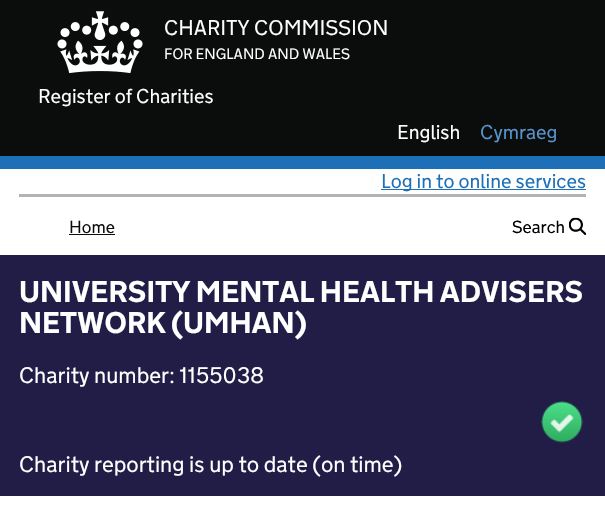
void draw(SkCanvas* canvas) {
	SkPaint fill;
	fill.setAntiAlias(true);
	auto makeFont = [&](const char* family, int weight, float size, bool italic = false) {
		SkFontStyle style(weight, SkFontStyle::kNormal_Width,
			italic ? SkFontStyle::kItalic_Slant : SkFontStyle::kUpright_Slant);
		SkFont result(fontMgr->matchFamilyStyle(family, style), size);
		result.setSubpixel(true);
		return result;
	};
	auto text = [&](const char* s, float x, float y, const SkFont& font) {
		canvas->drawString(s, x, y, font, fill);
	};
	auto box = [&](float l, float t, float r, float b) {
		canvas->drawRect(SkRect::MakeLTRB(l, t, r, b), fill);
	};
	auto picture = [&](const char* path, float l, float t, float r, float b) {
		auto image = SkImages::DeferredFromEncodedData(SkData::MakeFromFileName(path));
		canvas->drawImageRect(image, SkRect::MakeLTRB(l, t, r, b), SkSamplingOptions());
	};
	canvas->clear(0xFFFFFFFF);
	fill.setColor(0xFF0B0C0C);
	box(0, 0, 605, 156);
	fill.setColor(0xFF1D70B8);
	box(0, 156, 605, 169);
	picture("image0.png", 57, 11, 143, 74);
	fill.setColor(0xFFB1B4B6);
	box(19, 194, 586, 197);
	fill.setColor(0xFF1D70B8);
	box(381, 189, 586, 190);
	fill.setColor(0xFF0B0C0C);
	box(69, 234, 115, 235);
	picture("image1.png", 569, 217, 586, 235);
	fill.setColor(0xFF211D47);
	box(0, 255, 605, 496);
	picture("image2.png", 541, 401, 583, 443);
	auto font1 = makeFont("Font", 300, 21.25f);
	fill.setColor(0xFFFFFFFF);
	text("CHARITY COMMISSION", 164, 35, font1);
	auto font2 = makeFont("Font", 300, 15);
	text("FOR ENGLAND AND WALES", 164, 59, font2);
	auto font3 = makeFont("Font", 300, 20);
	text("Register of Charities", 38, 103, font3);
	text("English", 397, 139, font3);
	fill.setColor(0xFF5694CA);
	text("Cymraeg", 480, 139, font3);
	fill.setColor(0xFF1D70B8);
	text("Log in to online services", 381, 188, font3);
	auto font4 = makeFont("Font", 300, 17.5f);
	fill.setColor(0xFF0B0C0C);
	text("Home", 69, 233, font4);
	fill.setColor(0xFF000000);
	text("Search", 512, 233, font4);
	auto font5 = makeFont("Font", 700, 30);
	fill.setColor(0xFFFFFFFF);
	text("UNIVERSITY MENTAL HEALTH ADVISERS", 19, 302, font5);
	text("NETWORK (UMHAN)", 19, 333, font5);
	auto font6 = makeFont("Font", 300, 22.5f);
	text("Charity number: 1155038", 19, 383, font6);
	text("Charity reporting is up to date (on time)", 19, 472, font6);
}
